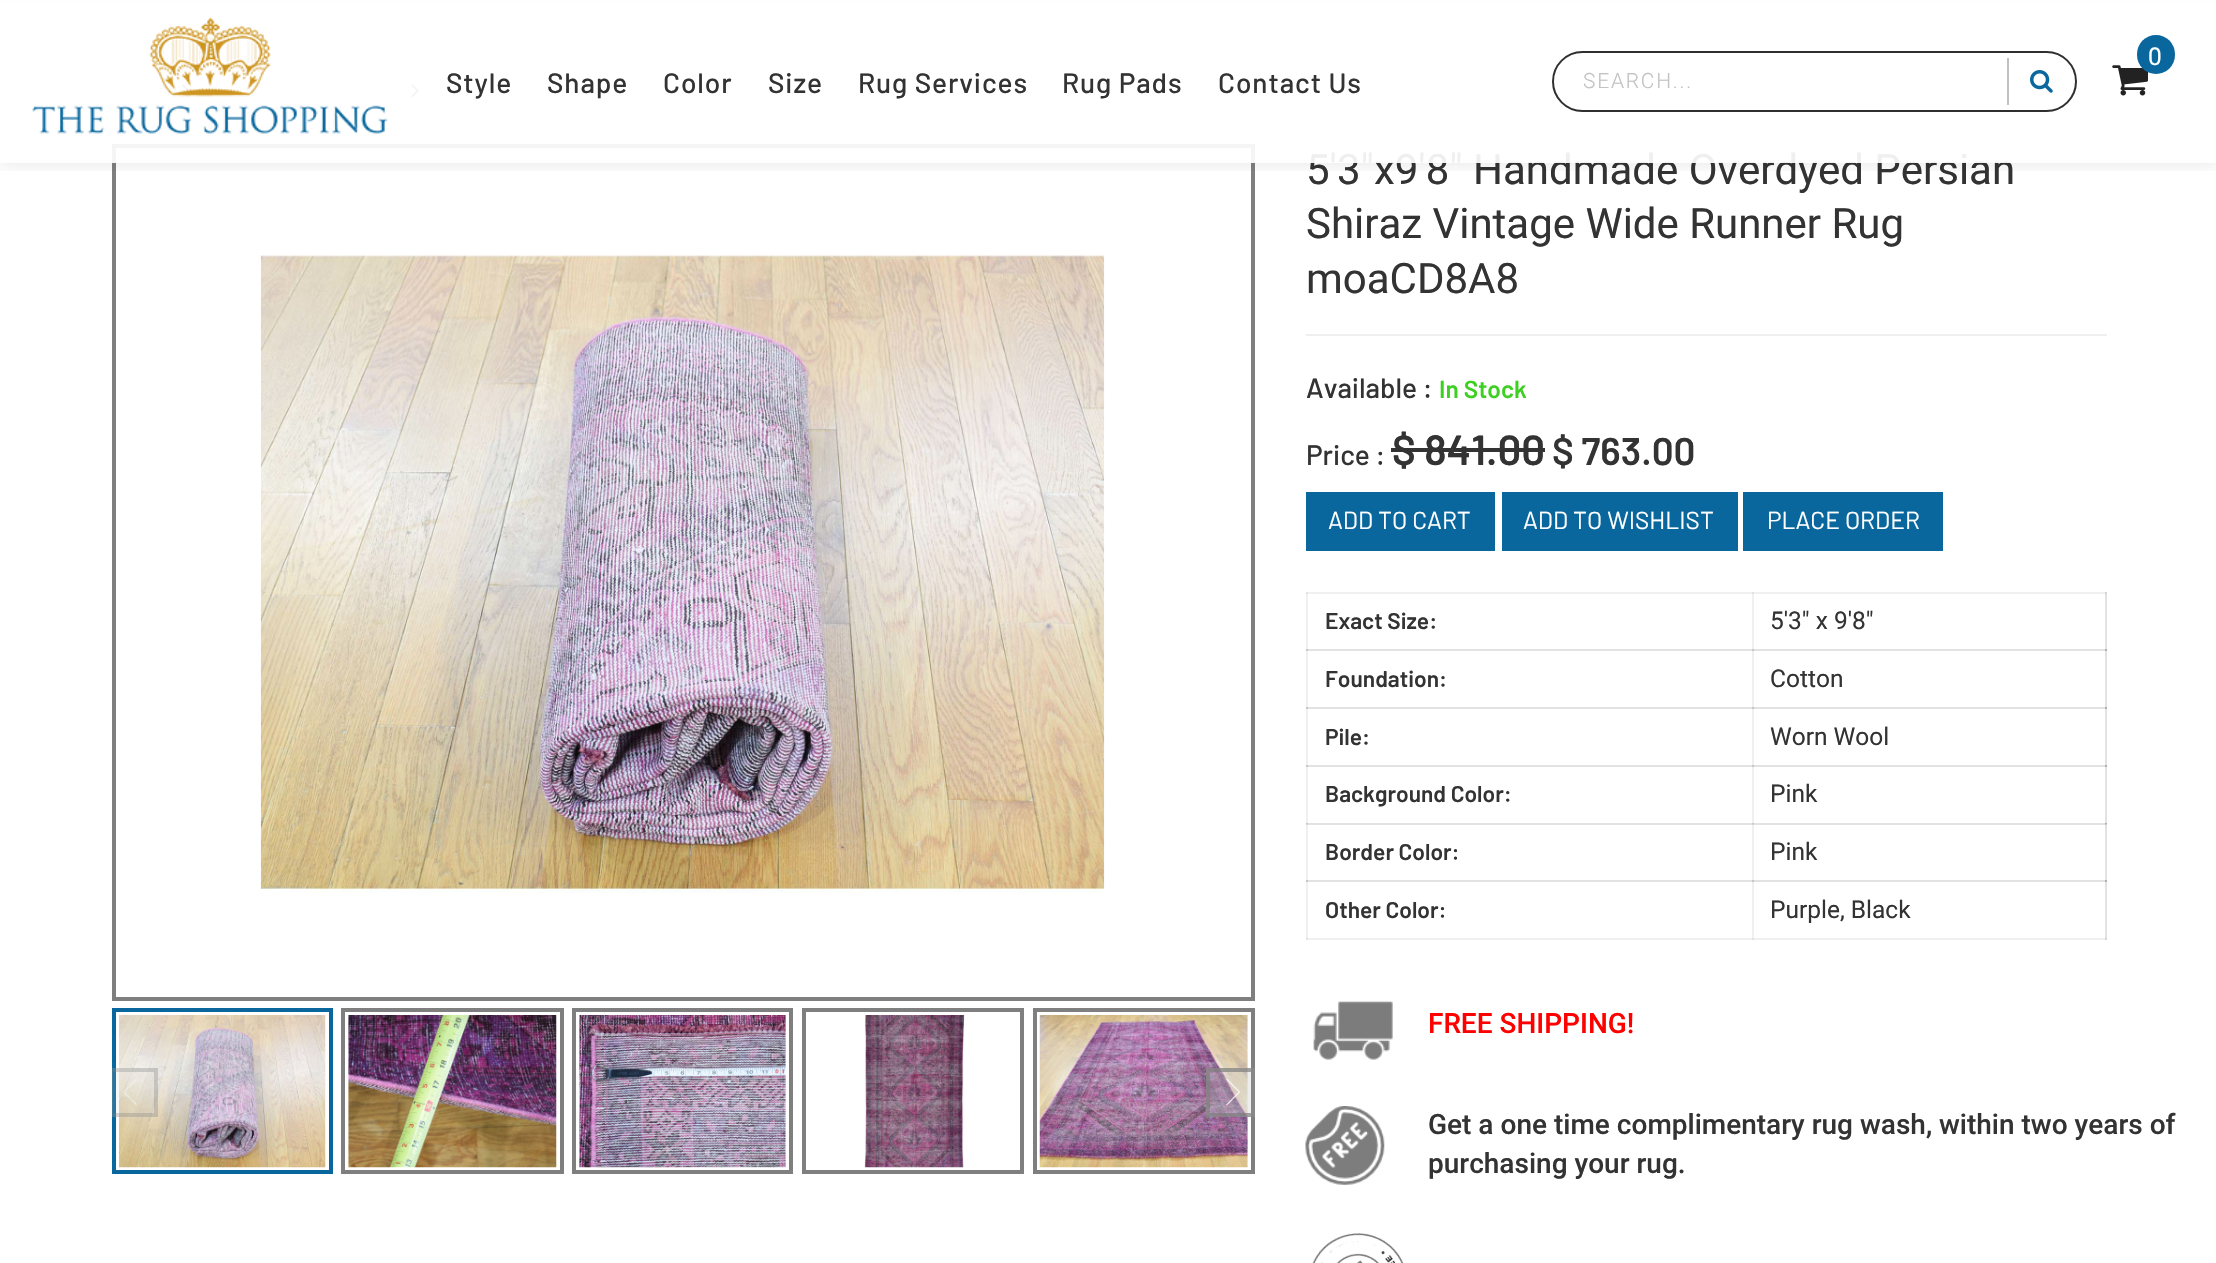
void draw(SkCanvas* canvas) {
	SkPaint fill;
	fill.setAntiAlias(true);
	auto makeFont = [&](const char* family, int weight, float size, bool italic = false) {
		SkFontStyle style(weight, SkFontStyle::kNormal_Width,
			italic ? SkFontStyle::kItalic_Slant : SkFontStyle::kUpright_Slant);
		SkFont result(fontMgr->matchFamilyStyle(family, style), size);
		result.setSubpixel(true);
		return result;
	};
	auto text = [&](const char* s, float x, float y, const SkFont& font) {
		canvas->drawString(s, x, y, font, fill);
	};
	auto spacedText = [&](const char* s, float x, float y, const SkFont& font, const SkPaint& ink, float letter, float word) {
		std::vector<SkGlyphID> glyphs(font.countText(s, strlen(s), SkTextEncoding::kUTF8));
		std::vector<float> xs(glyphs.size());
		font.textToGlyphs(s, strlen(s), SkTextEncoding::kUTF8, glyphs);
		font.getXPos(glyphs, xs, x);
		float extra = 0;
		for (size_t i = 0; i < glyphs.size(); i++) {
			xs[i] += extra;
			extra += letter + word * (glyphs[i] == font.unicharToGlyph(' '));
		}
		canvas->drawTextBlob(SkTextBlob::MakeFromPosHGlyphs(glyphs, xs, y, font), 0, 0, ink);
	};
	auto box = [&](float l, float t, float r, float b) {
		canvas->drawRect(SkRect::MakeLTRB(l, t, r, b), fill);
	};
	auto roundBox = [&](float l, float t, float r, float b, float radius) {
		canvas->drawRoundRect(SkRect::MakeLTRB(l, t, r, b), radius, radius, fill);
	};
	auto picture = [&](const char* path, float l, float t, float r, float b) {
		auto image = SkImages::DeferredFromEncodedData(SkData::MakeFromFileName(path));
		canvas->drawImageRect(image, SkRect::MakeLTRB(l, t, r, b), SkSamplingOptions());
	};
	canvas->clear(0xFFFFFFFF);
	fill.setColor(0xFFF0F0F0);
	box(1752, 592, 1754, 940);
	box(1306, 592, 1308, 940);
	fill.setColor(0xFFE2E2E2);
	box(2105, 592, 2107, 882);
	fill.setColor(0xFFF0F0F0);
	box(1306, 938, 2107, 940);
	fill.setColor(0xFFE2E2E2);
	box(1752, 938, 1754, 940);
	box(1306, 938, 1308, 940);
	box(2105, 880, 2107, 940);
	fill.setColor(0xFFD4D4D4);
	box(2105, 938, 2107, 940);
	fill.setColor(0xFFEBEBEB);
	box(0, 0, 2216, 2);
	picture("image3.png", 182, 84, 190, 97);
	picture("image4.png", 411, 84, 419, 97);
	fill.setStyle(SkPaint::kStroke_Style);
	fill.setStrokeWidth(4);
	fill.setColor(0xFF7F7F7F);
	canvas->drawRect(SkRect::MakeLTRB(114, 146, 1253, 999), fill);
	picture("image5.png", 260, 255, 1105, 893);
	fill.setColor(0xFF09679D);
	canvas->drawRect(SkRect::MakeLTRB(114, 1010, 331, 1172), fill);
	picture("image6.png", 119, 1015, 326, 1168);
	fill.setColor(0xFF7F7F7F);
	canvas->drawRect(SkRect::MakeLTRB(343, 1010, 562, 1172), fill);
	picture("image7.png", 348, 1015, 557, 1168);
	canvas->drawRect(SkRect::MakeLTRB(574, 1010, 791, 1172), fill);
	picture("image8.png", 579, 1015, 786, 1168);
	canvas->drawRect(SkRect::MakeLTRB(804, 1010, 1022, 1172), fill);
	picture("image9.png", 864, 1015, 965, 1168);
	canvas->drawRect(SkRect::MakeLTRB(1035, 1010, 1253, 1172), fill);
	picture("image10.png", 1039, 1015, 1248, 1168);
	fill.setStyle(SkPaint::kFill_Style);
	fill.setColor(0x26CCCCCC);
	box(112, 1068, 158, 1117);
	canvas->save();
	canvas->clipRect(SkRect::MakeLTRB(112, 1008, 1255, 1174));
	fill.setStyle(SkPaint::kStroke_Style);
	fill.setColor(0x4D7F7F7F);
	canvas->drawRect(SkRect::MakeLTRB(111, 1070, 156, 1115), fill);
	canvas->restore();
	fill.setStyle(SkPaint::kFill_Style);
	fill.setColor(0x4DFFFFFF);
	canvas->drawPath(SkPathBuilder().moveTo(136, 1078.5f).lineTo(137.5f, 1079.5f).lineTo(125, 1092).lineTo(137.5f, 1104.5f).lineTo(136, 1105.5f).lineTo(123, 1092.5f).lineTo(123, 1091.5f).close().detach(), fill);
	fill.setColor(0x59CCCCCC);
	box(1206, 1068, 1255, 1117);
	fill.setStyle(SkPaint::kStroke_Style);
	fill.setColor(0xB37F7F7F);
	canvas->drawRect(SkRect::MakeLTRB(1208, 1070, 1253, 1115), fill);
	fill.setStyle(SkPaint::kFill_Style);
	fill.setColor(0xB3FFFFFF);
	canvas->drawPath(SkPathBuilder().moveTo(1240, 1091.5f).lineTo(1240, 1092.5f).lineTo(1227, 1105.5f).lineTo(1226, 1104.5f).lineTo(1238.5f, 1092).lineTo(1226, 1079.5f).lineTo(1227, 1078.5f).close().detach(), fill);
	fill.setColor(0xFFEFEFEF);
	box(1306, 334, 2107, 336);
	fill.setColor(0xFF333333);
	box(1391, 448, 1545, 452);
	fill.setColor(0xFF09679D);
	box(1306, 492, 1495, 551);
	box(1502, 492, 1738, 551);
	box(1743, 492, 1943, 551);
	fill.setColor(0xFFF0F0F0);
	box(1306, 592, 2107, 594);
	fill.setColor(0xFFE2E2E2);
	box(1752, 592, 1754, 594);
	box(1306, 592, 1308, 594);
	fill.setColor(0xFFD4D4D4);
	box(2105, 592, 2107, 594);
	fill.setColor(0xFFE2E2E2);
	box(1306, 649, 2107, 651);
	fill.setColor(0xFFC7C7C7);
	box(1752, 649, 1754, 651);
	box(1306, 649, 1308, 651);
	fill.setColor(0xFFB0B0B0);
	box(2105, 649, 2107, 651);
	fill.setColor(0xFFE2E2E2);
	box(1306, 707, 2107, 709);
	fill.setColor(0xFFC7C7C7);
	box(1752, 707, 1754, 709);
	box(1306, 707, 1308, 709);
	fill.setColor(0xFFB0B0B0);
	box(2105, 707, 2107, 709);
	fill.setColor(0xFFE2E2E2);
	box(1306, 765, 2107, 767);
	fill.setColor(0xFFC7C7C7);
	box(1752, 765, 1754, 767);
	box(1306, 765, 1308, 767);
	fill.setColor(0xFFB0B0B0);
	box(2105, 765, 2107, 767);
	fill.setColor(0xFFE2E2E2);
	box(1306, 823, 2107, 825);
	fill.setColor(0xFFD4D4D4);
	box(1752, 824, 1754, 825);
	fill.setColor(0xFFC7C7C7);
	box(1752, 823, 1754, 824);
	fill.setColor(0xFFD4D4D4);
	box(1306, 824, 1308, 825);
	fill.setColor(0xFFC7C7C7);
	box(1306, 823, 1308, 824);
	box(2105, 824, 2107, 825);
	fill.setColor(0xFFB0B0B0);
	box(2105, 823, 2107, 824);
	fill.setColor(0xFFE2E2E2);
	box(1306, 880, 2107, 882);
	fill.setColor(0xFFC7C7C7);
	box(1752, 880, 1754, 882);
	box(1306, 880, 1308, 882);
	fill.setColor(0xFFB0B0B0);
	box(2105, 880, 2107, 882);
	picture("image11.png", 1313, 1001, 1393, 1060);
	picture("image12.png", 1305, 1106, 1385, 1185);
	picture("image13.png", 1312, 1233, 1404, 1263);
	auto font1 = makeFont("Roboto", 400, 42);
	fill.setColor(0xFF333333);
	text("5'3\"x9'8\" Handmade Overdyed Persian", 1306, 184, font1);
	fill.setColor(0xEBFFFFFF);
	box(0, 0, 2216, 163);
	canvas->save();
	canvas->clipRect(SkRect::MakeLTRB(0, 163, 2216, 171));
	fill.setColor(0x1A000000);
	fill.setMaskFilter(SkMaskFilter::MakeBlur(kNormal_SkBlurStyle, 9));
	canvas->drawRect(SkRect::MakeLTRB(0, 0, 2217, 163), fill);
	fill.setMaskFilter(nullptr);
	canvas->restore();
	picture("image1.png", 2112, 65, 2148, 96);
	fill.setColor(0xFF09679D);
	roundBox(2137, 35, 2175, 74, 19);
	auto font2 = makeFont("Roboto", 400, 24.5f);
	fill.setColor(0xFFFFFFFF);
	text("0", 2148, 65, font2);
	fill.setStyle(SkPaint::kStroke_Style);
	fill.setStrokeWidth(2);
	fill.setColor(0xFF2F2F2F);
	canvas->drawRoundRect(SkRect::MakeLTRB(1553, 52, 2076, 111), 29.5f, 29.5f, fill);
	fill.setStyle(SkPaint::kFill_Style);
	fill.setColor(0xFFC2C2C2);
	box(2007, 58, 2009, 105);
	picture("image2.png", 2030, 70, 2053, 93);
	auto font3 = makeFont("Roboto", 300, 21);
	spacedText("SEARCH...", 1583, 88, font3, fill, 1.75f, 0);
	auto font4 = makeFont("Barlow", 500, 28);
	fill.setColor(0xFF333333);
	spacedText("Contact Us", 1218, 93, font4, fill, 0.9f, 0);
	spacedText("Rug Pads", 1062, 93, font4, fill, 0.9f, 0);
	spacedText("Rug Services", 858, 93, font4, fill, 0.9f, 0);
	spacedText("Size", 768, 93, font4, fill, 0.9f, 0);
	spacedText("Color", 663, 93, font4, fill, 0.9f, 0);
	spacedText("Shape", 547, 93, font4, fill, 0.9f, 0);
	spacedText("Style", 446, 93, font4, fill, 0.9f, 0);
	picture("image0.png", 32, 17, 388, 134);
	text("Shiraz Vintage Wide Runner Rug", 1306, 238, font1);
	text("moaCD8A8", 1306, 293, font1);
	text("Available :", 1306, 398, font4);
	auto font5 = makeFont("Barlow", 600, 24.5f);
	fill.setColor(0xFF3CD021);
	text("In Stock", 1439, 398, font5);
	fill.setColor(0xFF333333);
	text("Price :", 1306, 465, font4);
	auto font6 = makeFont("Barlow", 600, 42);
	text("$ 841.00", 1392, 465, font6);
	auto font7 = makeFont("Barlow", 600, 38.5f);
	text("$ 763.00", 1552, 465, font7);
	auto font8 = makeFont("Barlow", 400, 24.5f);
	fill.setColor(0xFFFFFFFF);
	text("ADD TO CART", 1328, 529, font8);
	text("ADD TO WISHLIST", 1523, 529, font8);
	text("PLACE ORDER", 1767, 529, font8);
	auto font9 = makeFont("Barlow", 600, 22.75f);
	fill.setColor(0xFF333333);
	text("Exact Size:", 1325, 629, font9);
	text("5'3\" x 9'8\"", 1770, 629, font2);
	text("Foundation:", 1325, 687, font9);
	text("Cotton", 1770, 687, font2);
	text("Pile:", 1325, 745, font9);
	text("Worn Wool", 1770, 745, font2);
	text("Background Color:", 1325, 802, font9);
	text("Pink", 1770, 802, font2);
	text("Border Color:", 1325, 860, font9);
	text("Pink", 1770, 860, font2);
	text("Other Color:", 1325, 918, font9);
	text("Purple, Black", 1770, 918, font2);
	auto font10 = makeFont("Roboto", 500, 28);
	fill.setColor(0xFFFF0000);
	text("FREE SHIPPING!", 1428, 1033, font10);
	fill.setColor(0xFF333333);
	text("Get a one time complimentary rug wash, within two years of", 1428, 1134, font10);
	text("purchasing your rug.", 1428, 1173, font10);
}
